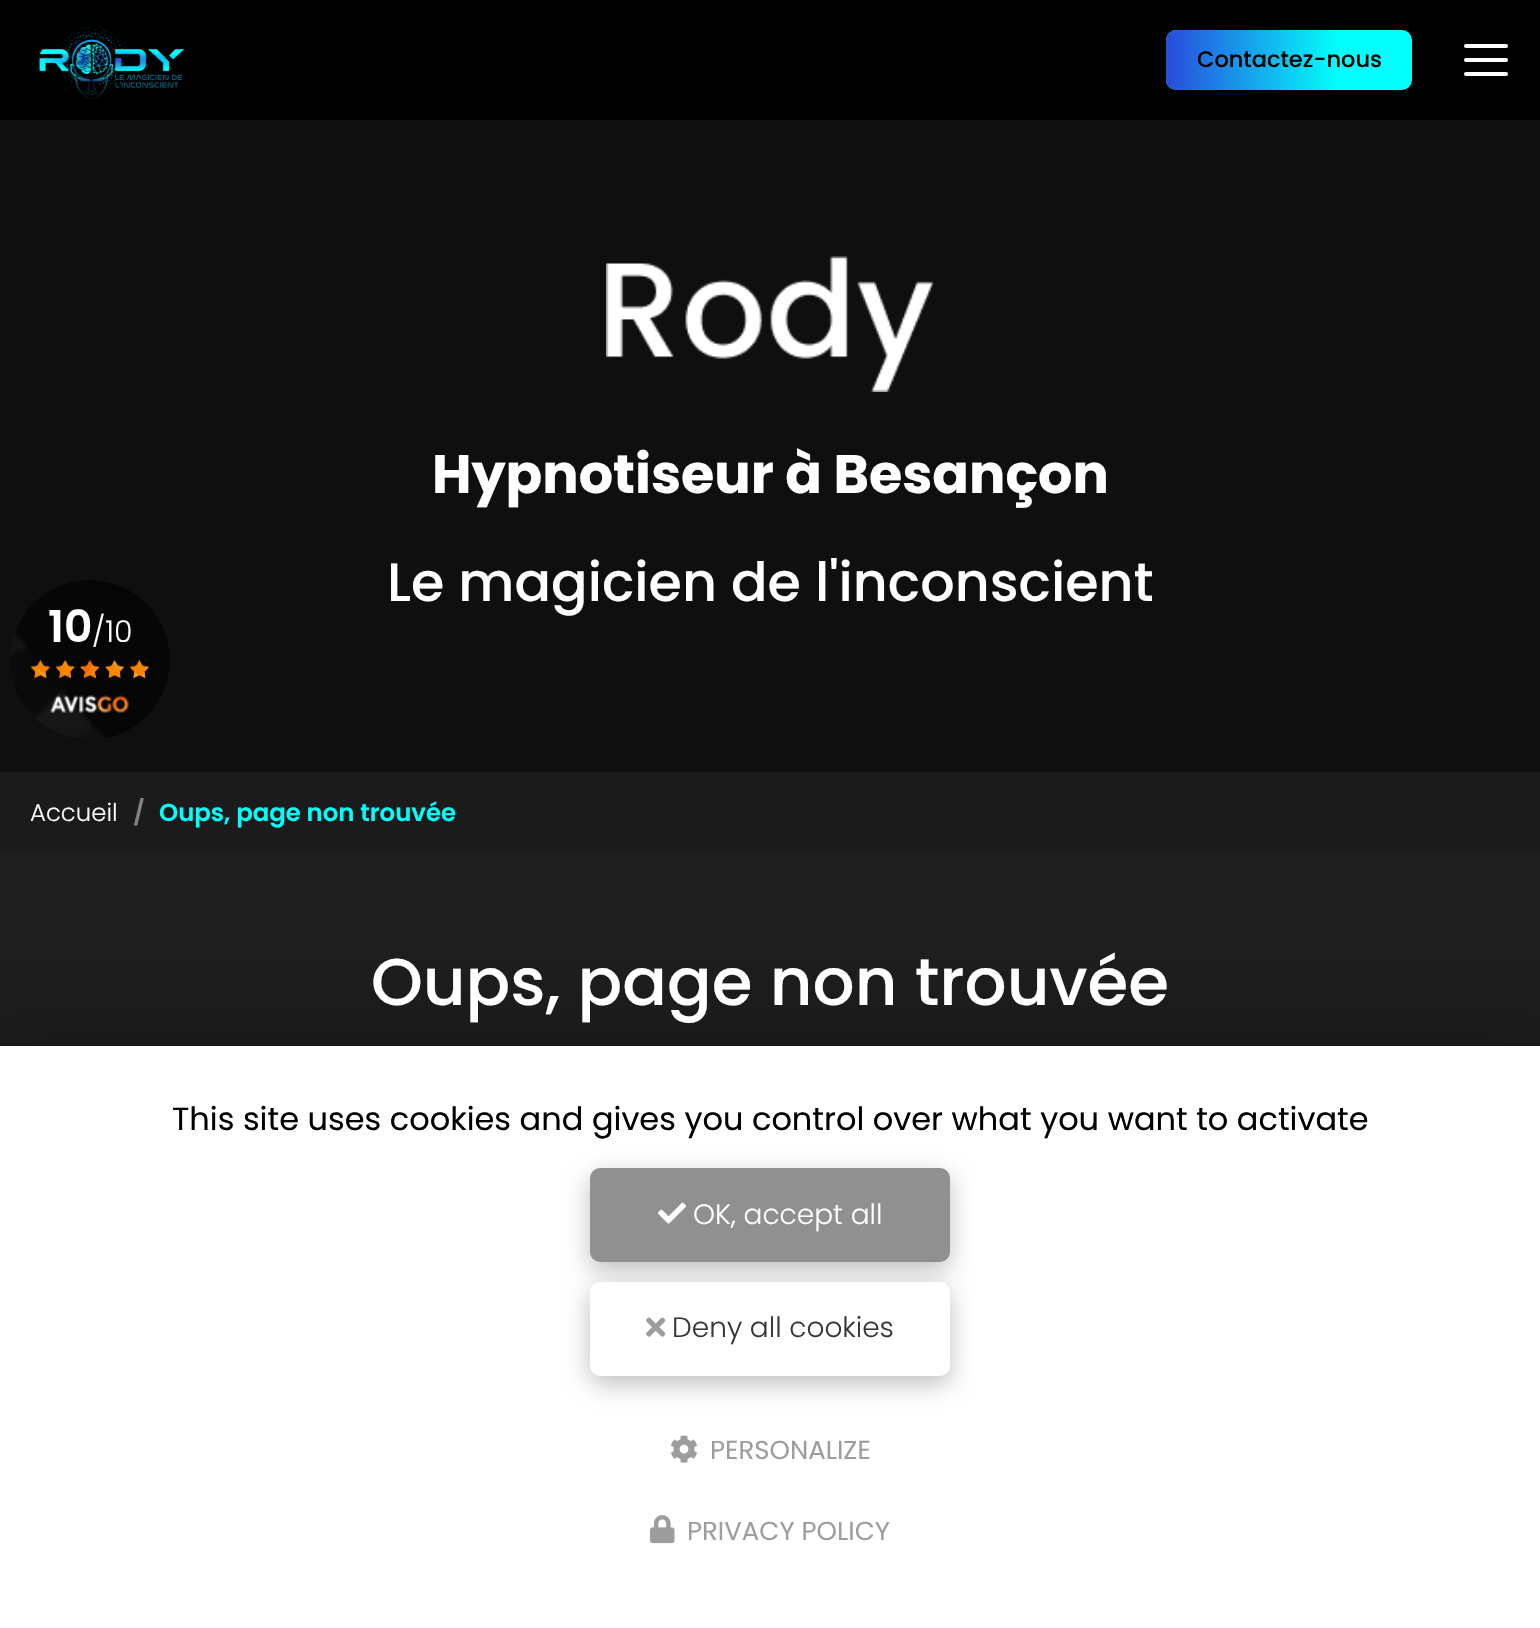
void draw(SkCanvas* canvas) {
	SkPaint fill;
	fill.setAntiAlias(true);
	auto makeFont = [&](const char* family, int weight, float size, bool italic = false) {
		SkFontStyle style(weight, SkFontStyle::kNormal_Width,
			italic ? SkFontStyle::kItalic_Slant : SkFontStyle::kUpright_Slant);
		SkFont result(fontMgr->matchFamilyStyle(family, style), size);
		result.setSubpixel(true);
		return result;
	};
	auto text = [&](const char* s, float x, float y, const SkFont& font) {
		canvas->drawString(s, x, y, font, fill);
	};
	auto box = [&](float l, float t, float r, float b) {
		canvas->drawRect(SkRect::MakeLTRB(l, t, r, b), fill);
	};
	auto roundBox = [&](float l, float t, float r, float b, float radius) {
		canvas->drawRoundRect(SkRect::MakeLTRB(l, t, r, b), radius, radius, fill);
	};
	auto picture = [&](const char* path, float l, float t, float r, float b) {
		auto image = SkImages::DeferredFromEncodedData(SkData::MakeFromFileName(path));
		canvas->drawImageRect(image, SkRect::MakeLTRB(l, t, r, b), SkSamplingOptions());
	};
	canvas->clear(0xFF1E1E1E);
	fill.setColor(0xFF000000);
	box(0, 0, 1540, 120);
	picture("image0.png", 39, 25, 185, 99);
	fill.setColor(0xFF02FFFC);
	roundBox(1166, 30, 1412, 90, 10);
	{
		const SkColor colors[] = {0xFF284BDB, 0x00284BDB};
		const float stops[] = {0, 0.7f};
		const SkPoint ends[] = {{1166, 60}, {1412, 60}};
		fill.setShader(SkGradientShader::MakeLinear(ends, colors, stops, 2, SkTileMode::kClamp));
		fill.setAlpha(255);
	}
	roundBox(1166, 30, 1412, 90, 10);
	fill.setShader(nullptr);
	fill.setColor(0xFFFFFFFF);
	roundBox(1464, 44, 1508, 48, 2);
	roundBox(1464, 58, 1508, 62, 2);
	roundBox(1464, 72, 1508, 76, 2);
	fill.setColor(0xFF0F0F0F);
	box(0, 120, 1540, 772);
	picture("image1.png", 606, 256, 934, 392);
	fill.setColor(0xFF060606);
	canvas->drawCircle(90, 660, 80, fill);
	picture("image2.png", 10, 633, 105, 740);
	picture("image3.png", 30, 660, 149, 678);
	picture("image4.png", 50, 695, 129, 713);
	fill.setColor(0xFF1B1B1B);
	box(0, 772, 1540, 852);
	fill.setColor(0x57000000);
	fill.setMaskFilter(SkMaskFilter::MakeBlur(kNormal_SkBlurStyle, 50));
	canvas->drawRect(SkRect::MakeLTRB(-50, 1046, 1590, 1628), fill);
	fill.setMaskFilter(nullptr);
	fill.setColor(0xFFFFFFFF);
	box(0, 1046, 1540, 1628);
	fill.setColor(0x40000000);
	fill.setMaskFilter(SkMaskFilter::MakeBlur(kNormal_SkBlurStyle, 12));
	canvas->drawRoundRect(SkRect::MakeLTRB(590, 1176, 950, 1270), 10, 10, fill);
	fill.setMaskFilter(nullptr);
	fill.setColor(0xFF909090);
	roundBox(590, 1168, 950, 1262, 10);
	picture("image5.png", 658, 1202, 686, 1224);
	fill.setColor(0x40000000);
	fill.setMaskFilter(SkMaskFilter::MakeBlur(kNormal_SkBlurStyle, 12));
	canvas->drawRoundRect(SkRect::MakeLTRB(590, 1290, 950, 1384), 10, 10, fill);
	fill.setMaskFilter(nullptr);
	fill.setColor(0xFFFFFFFF);
	roundBox(590, 1282, 950, 1376, 10);
	picture("image6.png", 646, 1317, 666, 1337);
	picture("image7.png", 671, 1435, 697, 1463);
	picture("image8.png", 650, 1515, 675, 1544);
	auto font1 = makeFont("Poppins", 500, 22.5f);
	fill.setColor(0xFF000000);
	text("Contactez-nous", 1197, 67, font1);
	auto font2 = makeFont("Poppins", 700, 54);
	fill.setColor(0xFFFFFFFF);
	text("Hypnotiseur à Besançon", 432, 493, font2);
	auto font3 = makeFont("Poppins", 500, 54);
	text("Le magicien de l'inconscient", 387, 601, font3);
	auto font4 = makeFont("Poppins", 600, 44);
	text("10", 48, 642, font4);
	auto font5 = makeFont("Poppins", 300, 30);
	text("/10", 92, 642, font5);
	auto font6 = makeFont("Poppins", 300, 24.4f);
	text("Accueil", 30, 821, font6);
	auto font7 = makeFont("Poppins", 600, 24.4f);
	fill.setColor(0xFF818181);
	text("/", 133, 821, font7);
	fill.setColor(0xFF02FFFC);
	text("Oups, page non trouvée", 159, 821, font7);
	auto font8 = makeFont("Poppins", 500, 66);
	fill.setColor(0xFFFFFFFF);
	text("Oups, page non trouvée", 371, 1005, font8);
	auto font9 = makeFont("Poppins", 400, 32);
	fill.setColor(0xFF000000);
	text("This site uses cookies and gives you control over what you want to activate", 172, 1130, font9);
	auto font10 = makeFont("Poppins", 300, 28);
	fill.setColor(0xFFFFFFFF);
	text("OK, accept all", 693, 1224, font10);
	fill.setColor(0xFF373737);
	text("Deny all cookies", 672, 1337, font10);
	auto font11 = makeFont("Poppins", 400, 26);
	fill.setColor(0xFF9D9D9D);
	text("PERSONALIZE", 710, 1459, font11);
	text("PRIVACY POLICY", 687, 1540, font11);
}
